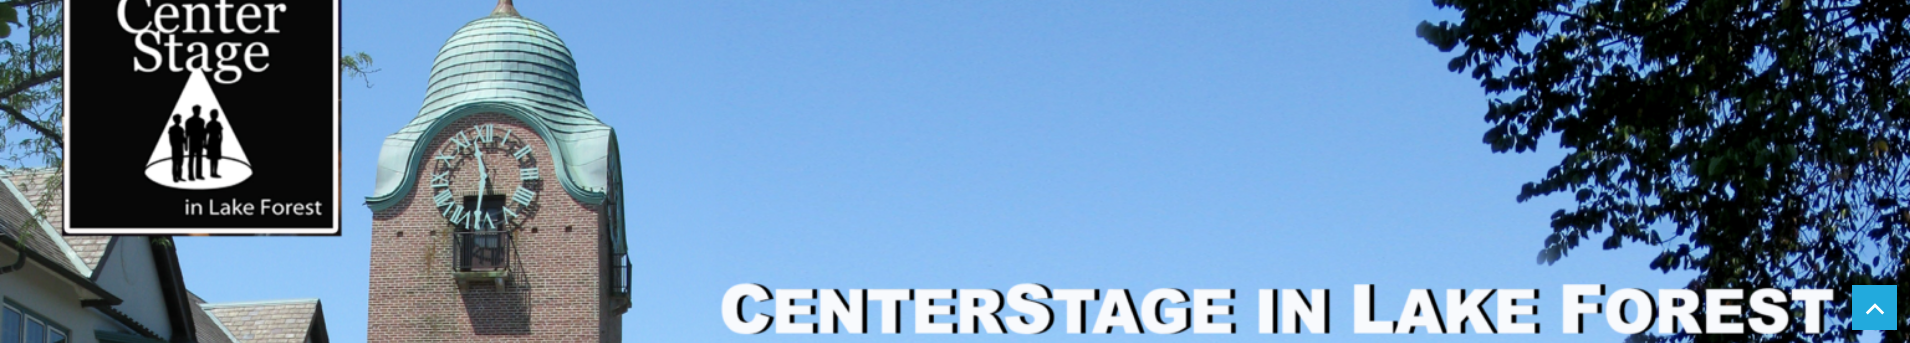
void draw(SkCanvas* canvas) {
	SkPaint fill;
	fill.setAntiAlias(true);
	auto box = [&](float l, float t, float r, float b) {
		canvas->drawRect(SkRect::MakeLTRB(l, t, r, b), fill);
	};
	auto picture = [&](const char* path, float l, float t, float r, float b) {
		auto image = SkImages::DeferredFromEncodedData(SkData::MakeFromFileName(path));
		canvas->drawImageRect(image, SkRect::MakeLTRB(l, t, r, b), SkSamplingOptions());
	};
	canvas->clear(0xFFFFFFFF);
	picture("image0.png", 0, 0, 1910, 343);
	fill.setColor(0xFF22AADD);
	box(1852, 285, 1897, 330);
	picture("image1.png", 1865, 303, 1885, 315);
}
